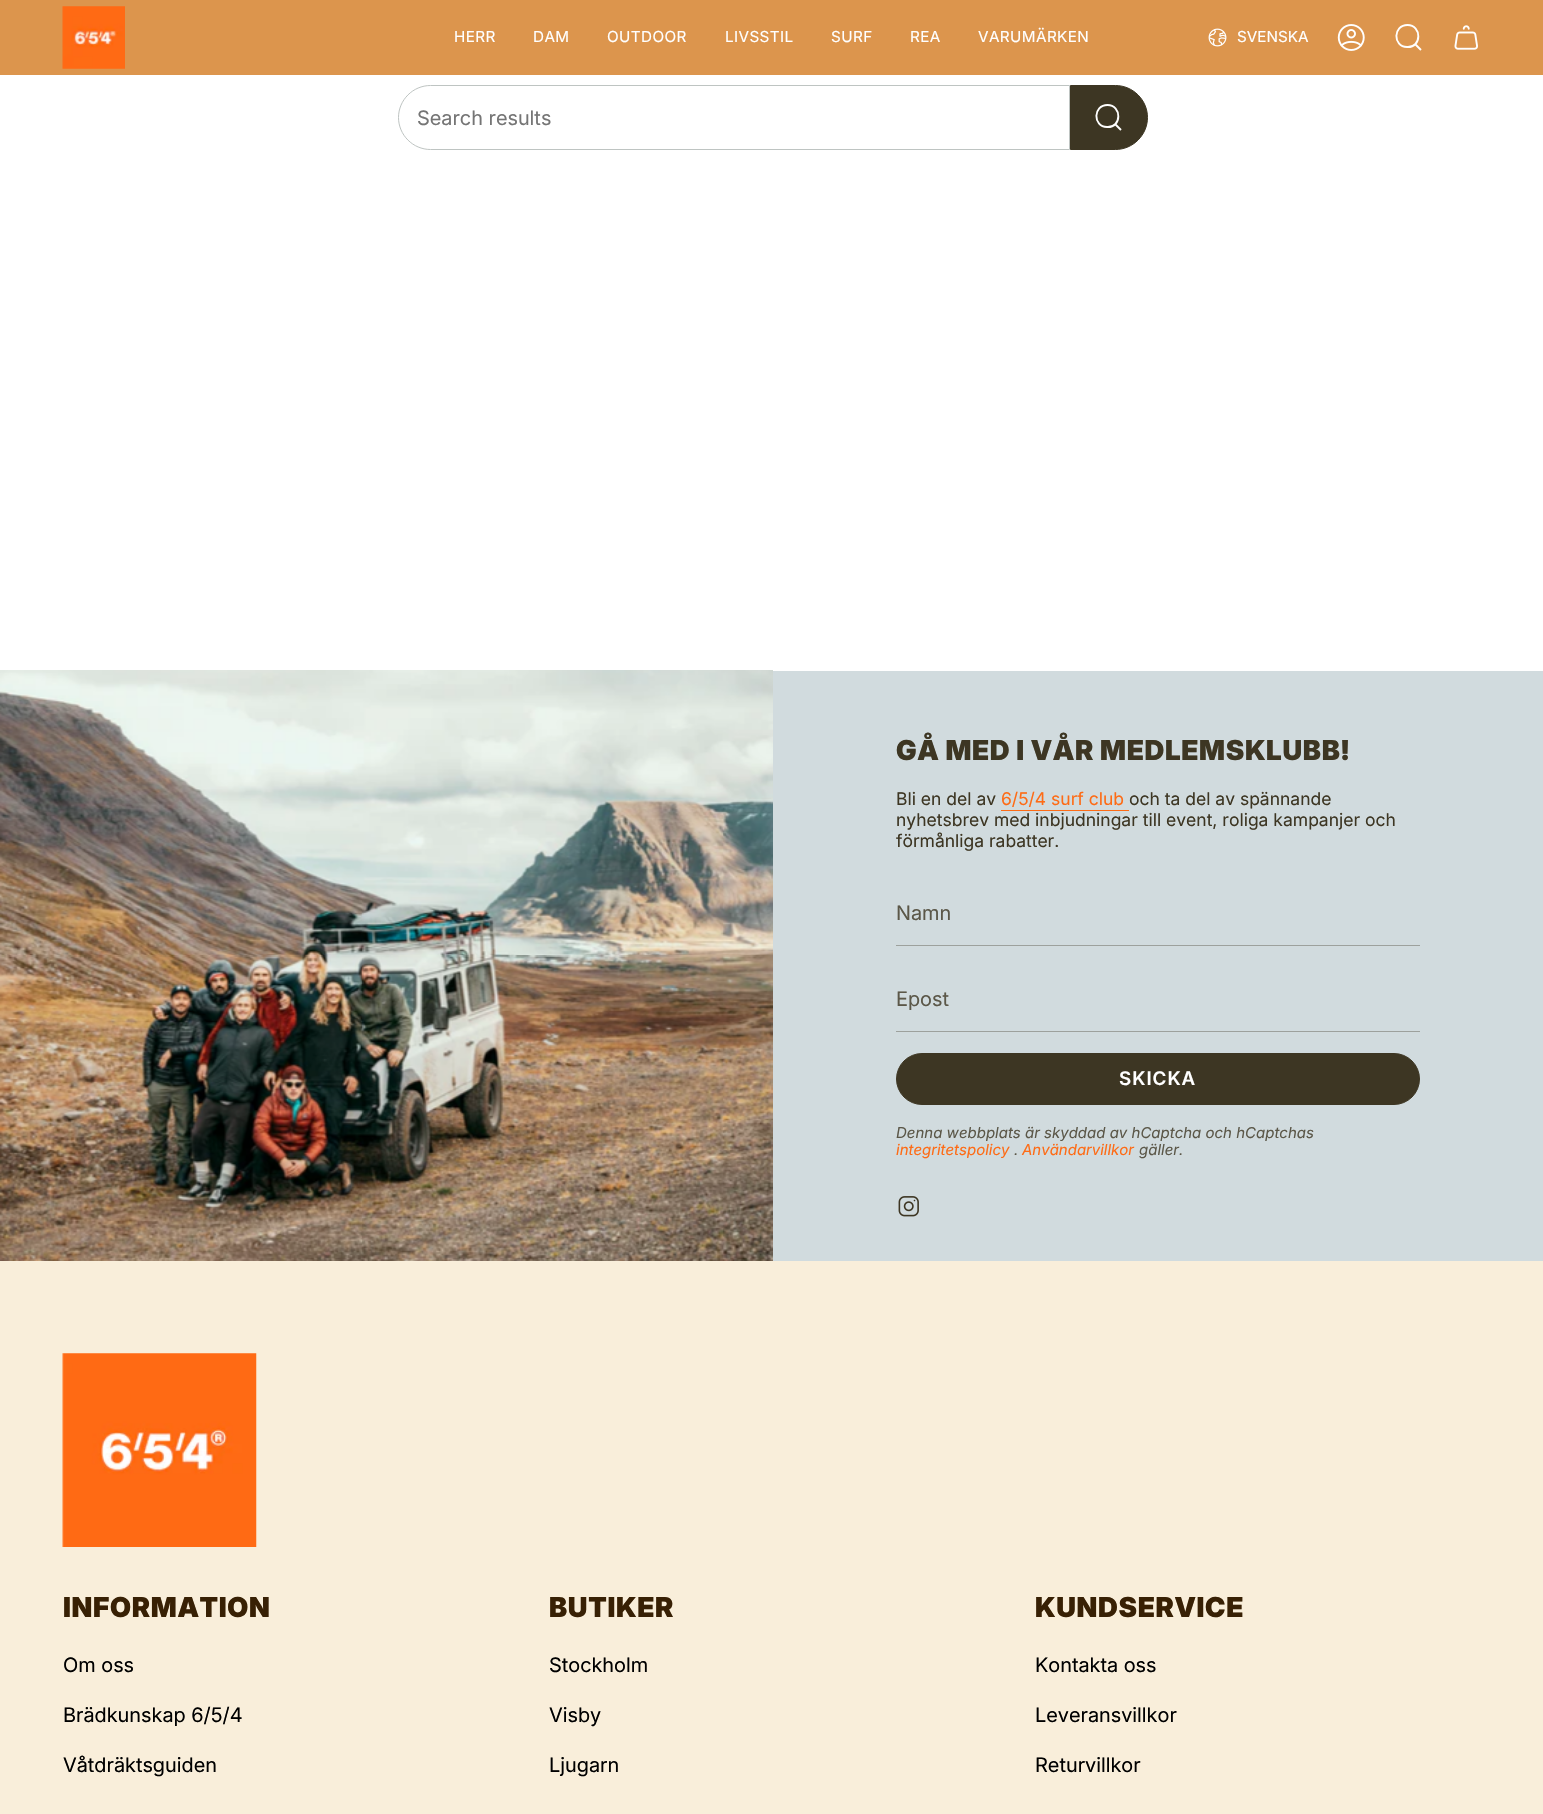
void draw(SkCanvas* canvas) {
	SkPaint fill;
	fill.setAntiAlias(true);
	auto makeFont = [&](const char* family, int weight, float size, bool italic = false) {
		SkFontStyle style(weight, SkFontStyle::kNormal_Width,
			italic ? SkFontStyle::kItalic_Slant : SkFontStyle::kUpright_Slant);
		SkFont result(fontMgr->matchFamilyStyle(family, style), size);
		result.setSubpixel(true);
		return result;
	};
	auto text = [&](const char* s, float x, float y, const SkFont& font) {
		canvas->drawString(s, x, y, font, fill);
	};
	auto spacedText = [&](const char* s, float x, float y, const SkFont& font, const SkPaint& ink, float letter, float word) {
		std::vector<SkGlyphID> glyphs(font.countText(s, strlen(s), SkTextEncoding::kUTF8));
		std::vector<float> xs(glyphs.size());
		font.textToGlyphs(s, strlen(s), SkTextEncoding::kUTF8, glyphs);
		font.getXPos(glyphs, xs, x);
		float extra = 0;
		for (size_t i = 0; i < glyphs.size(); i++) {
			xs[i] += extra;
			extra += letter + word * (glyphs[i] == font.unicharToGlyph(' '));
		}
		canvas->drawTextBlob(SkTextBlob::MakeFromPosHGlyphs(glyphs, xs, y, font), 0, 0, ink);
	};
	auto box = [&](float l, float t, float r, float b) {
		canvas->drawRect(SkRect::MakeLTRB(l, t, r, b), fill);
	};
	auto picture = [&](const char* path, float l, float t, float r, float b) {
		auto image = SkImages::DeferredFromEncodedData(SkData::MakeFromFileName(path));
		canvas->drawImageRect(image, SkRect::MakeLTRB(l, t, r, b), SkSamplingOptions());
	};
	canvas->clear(0xFFFFFFFF);
	fill.setColor(0xFFDC954D);
	box(0, 0, 1543, 75);
	picture("image0.png", 62, 6, 125, 69);
	picture("image1.png", 1208, 28, 1227, 47);
	picture("image2.png", 1337, 24, 1365, 51);
	fill.setStyle(SkPaint::kStroke_Style);
	fill.setStrokeWidth(1.9f);
	fill.setColor(0xFFFFFFFF);
	canvas->drawPath(SkPathBuilder().moveTo(1407.5f, 25).cubicTo(1422, 25, 1422, 48, 1407, 47).cubicTo(1392.5f, 46.5f, 1393, 25, 1407.5f, 25).close().moveTo(1415, 44).lineTo(1421, 50).detach(), fill);
	picture("image3.png", 1454, 25, 1478, 50);
	fill.setStrokeWidth(1);
	fill.setColor(0xFFBEC4C2);
	canvas->drawPath(SkPathBuilder().moveTo(430.5f, 85.5f).lineTo(1069.5f, 85.5f).lineTo(1069.5f, 149.5f).lineTo(430.5f, 149.5f).cubicTo(413, 149.5f, 398.5f, 135, 398.5f, 117.5f).cubicTo(398.5f, 100, 413, 85.5f, 430.5f, 85.5f).close().detach(), fill);
	fill.setStyle(SkPaint::kFill_Style);
	fill.setColor(0xFF3D3623);
	canvas->drawPath(SkPathBuilder().moveTo(1070.5f, 85.5f).lineTo(1115.5f, 85.5f).cubicTo(1133, 85.5f, 1147.5f, 100, 1147.5f, 117.5f).cubicTo(1147.5f, 135, 1133, 149.5f, 1115.5f, 149.5f).lineTo(1070.5f, 149.5f).close().detach(), fill);
	fill.setStyle(SkPaint::kStroke_Style);
	canvas->drawPath(SkPathBuilder().moveTo(1070.5f, 85.5f).lineTo(1115.5f, 85.5f).cubicTo(1133, 85.5f, 1147.5f, 100, 1147.5f, 117.5f).cubicTo(1147.5f, 135, 1133, 149.5f, 1115.5f, 149.5f).lineTo(1070.5f, 149.5f).close().detach(), fill);
	fill.setStrokeWidth(1.9f);
	fill.setColor(0xFFFFFFFF);
	canvas->drawPath(SkPathBuilder().moveTo(1107.5f, 105).cubicTo(1122, 105, 1122, 128, 1107, 127).cubicTo(1092.5f, 126.5f, 1093, 105, 1107.5f, 105).close().moveTo(1115, 124).lineTo(1121, 130).detach(), fill);
	fill.setStyle(SkPaint::kFill_Style);
	fill.setColor(0xFFD1DBDE);
	box(771, 671, 1543, 1261);
	picture("image4.png", 0, 670, 773, 1261);
	fill.setColor(0xFFFE6B15);
	box(1001, 810, 1129, 811);
	fill.setColor(0xFF9DA19D);
	box(896, 945, 1420, 946);
	box(896, 1031, 1420, 1032);
	fill.setColor(0xFF3D3623);
	canvas->drawRoundRect(SkRect::MakeLTRB(896.5f, 1053.5f, 1419.5f, 1104.5f), 25.5f, 25.5f, fill);
	fill.setStyle(SkPaint::kStroke_Style);
	fill.setStrokeWidth(1);
	canvas->drawRoundRect(SkRect::MakeLTRB(896.5f, 1053.5f, 1419.5f, 1104.5f), 25.5f, 25.5f, fill);
	picture("image5.png", 898, 1196, 919, 1217);
	fill.setStyle(SkPaint::kFill_Style);
	fill.setColor(0xFFF9EEDA);
	box(0, 1261, 1543, 1814);
	picture("image6.png", 62, 1353, 257, 1547);
	auto font1 = makeFont("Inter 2", 400, 15.25f);
	fill.setColor(0xFFFFFFFF);
	spacedText("HERR", 454, 42, font1, fill, 0.4f, 0);
	spacedText("DAM", 533, 42, font1, fill, 0.4f, 0);
	spacedText("OUTDOOR", 607, 42, font1, fill, 0.4f, 0);
	spacedText("LIVSSTIL", 725, 42, font1, fill, 0.4f, 0);
	spacedText("SURF", 831, 42, font1, fill, 0.4f, 0);
	spacedText("REA", 910, 42, font1, fill, 0.4f, 0);
	spacedText("VARUMÄRKEN", 978, 42, font1, fill, 0.4f, 0);
	text("SVENSKA", 1237, 42, font1);
	auto font2 = makeFont("Inter", 400, 20);
	fill.setColor(0xFF757575);
	text("Search results", 417, 125, font2);
	auto font3 = makeFont("Inter", 900, 27.5f);
	fill.setColor(0xFF3D3623);
	spacedText("GÅ MED I VÅR MEDLEMSKLUBB!", 896, 760, font3, fill, 0.7f, 0);
	auto font4 = makeFont("Inter 2", 400, 17.5f);
	text("Bli en del av", 896, 805, font4);
	fill.setColor(0xFFFE6B15);
	text("6/5/4 surf club", 1001, 805, font4);
	fill.setColor(0xFF3D3623);
	text("och ta del av spännande", 1129, 805, font4);
	text("nyhetsbrev med inbjudningar till event, roliga kampanjer och", 896, 826, font4);
	text("förmånliga rabatter.", 896, 847, font4);
	fill.setColor(0xFF5B5748);
	text("Namn", 896, 920, font2);
	text("Epost", 896, 1006, font2);
	auto font5 = makeFont("Inter", 600, 18.75f);
	fill.setColor(0xFFFFFFFF);
	spacedText("SKICKA", 1119, 1085, font5, fill, 1, 0);
	auto font6 = makeFont("Inter", 400, 15, true);
	fill.setColor(0xFF5B5748);
	text("Denna webbplats är skyddad av hCaptcha och hCaptchas", 896, 1138, font6);
	fill.setColor(0xFFFE6B15);
	text("integritetspolicy", 896, 1155, font6);
	fill.setColor(0xFF5B5748);
	text(".", 1014, 1155, font6);
	fill.setColor(0xFFFE6B15);
	text("Användarvillkor", 1022, 1155, font6);
	fill.setColor(0xFF5B5748);
	text("gäller.", 1139, 1155, font6);
	fill.setColor(0xFF382004);
	spacedText("INFORMATION", 63, 1617, font3, fill, 0.7f, 0);
	fill.setColor(0xFF000000);
	text("Om oss", 63, 1672, font2);
	text("Brädkunskap 6/5/4", 63, 1722, font2);
	text("Våtdräktsguiden", 63, 1772, font2);
	fill.setColor(0xFF382004);
	spacedText("BUTIKER", 549, 1617, font3, fill, 0.7f, 0);
	fill.setColor(0xFF000000);
	text("Stockholm", 549, 1672, font2);
	text("Visby", 549, 1722, font2);
	text("Ljugarn", 549, 1772, font2);
	fill.setColor(0xFF382004);
	spacedText("KUNDSERVICE", 1035, 1617, font3, fill, 0.7f, 0);
	fill.setColor(0xFF000000);
	text("Kontakta oss", 1035, 1672, font2);
	text("Leveransvillkor", 1035, 1722, font2);
	text("Returvillkor", 1035, 1772, font2);
}
